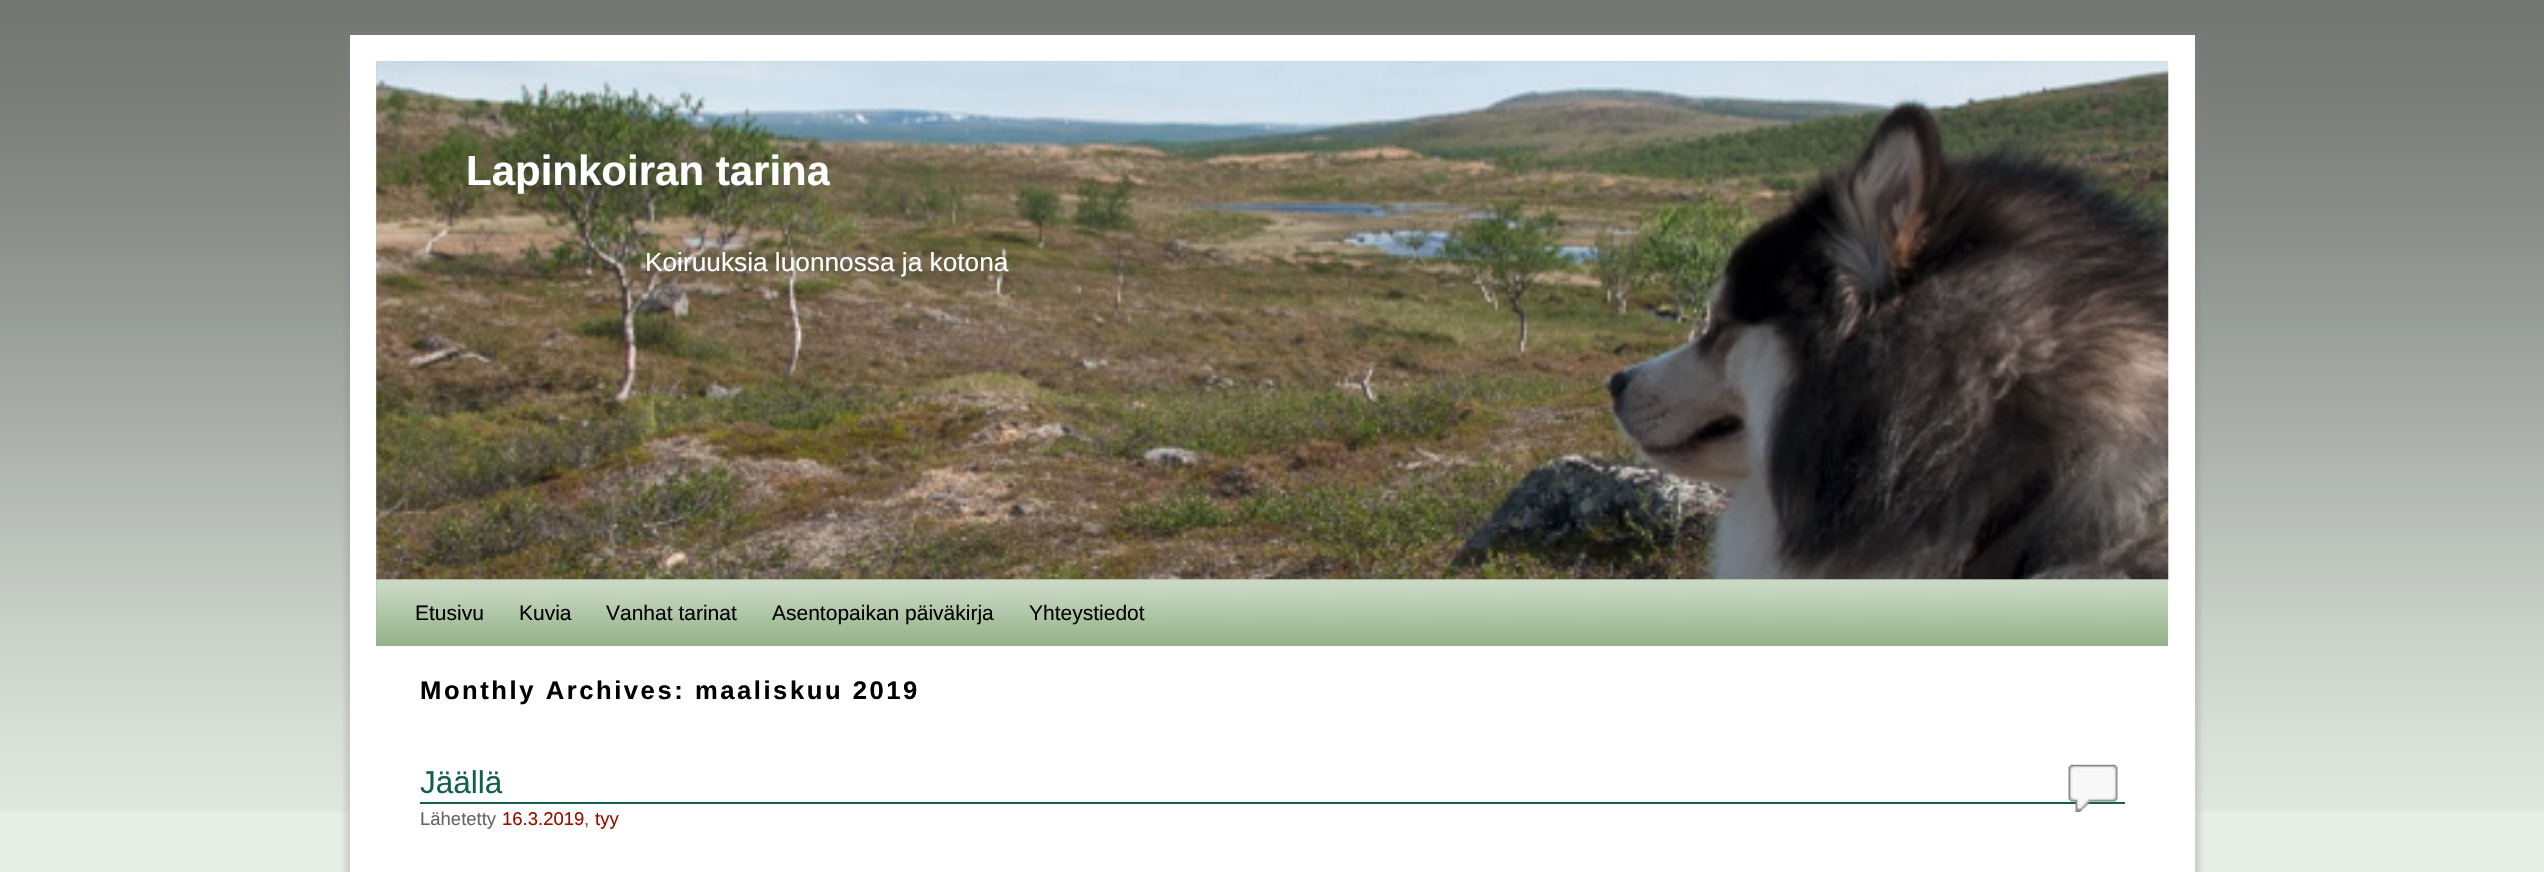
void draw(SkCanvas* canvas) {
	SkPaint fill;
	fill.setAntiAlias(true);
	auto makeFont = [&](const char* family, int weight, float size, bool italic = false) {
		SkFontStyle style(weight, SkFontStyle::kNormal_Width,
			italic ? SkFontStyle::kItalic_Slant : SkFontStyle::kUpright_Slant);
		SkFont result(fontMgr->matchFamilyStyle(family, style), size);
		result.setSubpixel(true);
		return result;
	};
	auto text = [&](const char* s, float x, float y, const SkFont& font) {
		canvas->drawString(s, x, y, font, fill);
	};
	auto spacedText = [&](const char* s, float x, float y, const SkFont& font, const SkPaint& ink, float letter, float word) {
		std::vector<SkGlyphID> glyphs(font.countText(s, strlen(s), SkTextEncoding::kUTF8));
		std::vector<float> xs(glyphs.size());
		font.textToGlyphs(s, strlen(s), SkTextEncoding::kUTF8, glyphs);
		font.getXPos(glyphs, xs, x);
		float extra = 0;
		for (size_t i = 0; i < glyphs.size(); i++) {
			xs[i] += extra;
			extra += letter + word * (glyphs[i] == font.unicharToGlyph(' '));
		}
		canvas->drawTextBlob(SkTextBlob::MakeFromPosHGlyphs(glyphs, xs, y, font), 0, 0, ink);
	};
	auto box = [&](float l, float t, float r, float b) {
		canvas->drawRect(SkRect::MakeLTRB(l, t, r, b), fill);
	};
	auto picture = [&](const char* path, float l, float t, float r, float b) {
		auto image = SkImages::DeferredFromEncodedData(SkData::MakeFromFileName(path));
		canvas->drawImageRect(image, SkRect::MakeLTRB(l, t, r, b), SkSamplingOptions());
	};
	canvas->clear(0xFFE5EDE4);
	picture("image0.png", 0, 0, 2544, 811);
	fill.setColor(0x407F7F7F);
	fill.setMaskFilter(SkMaskFilter::MakeBlur(kNormal_SkBlurStyle, 2.5f));
	canvas->drawRect(SkRect::MakeLTRB(345, 30, 2200, 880), fill);
	fill.setMaskFilter(nullptr);
	fill.setColor(0xFFFFFFFF);
	box(350, 35, 2195, 872);
	fill.setColor(0xFFAED1A1);
	box(376, 61, 2168, 579);
	fill.setColor(0xFF95B38A);
	box(376, 579, 2168, 646);
	picture("image2.png", 376, 579, 2168, 641);
	picture("image1.png", 376, 61, 2169, 580);
	fill.setColor(0xFF11614A);
	box(420, 802, 2125, 804);
	picture("image3.png", 2068, 764, 2118, 812);
	canvas->save();
	canvas->clipRect(SkRect::MakeLTRB(466, 138, 830, 201));
	auto font1 = makeFont("Liberation Sans", 700, 42);
	fill.setColor(0xFFFFFFFF);
	text("Lapinkoiran tarina", 466, 185, font1);
	canvas->restore();
	auto font2 = makeFont("Liberation Sans", 400, 26.25f);
	text("Koiruuksia luonnossa ja kotona", 645, 271, font2);
	auto font3 = makeFont("Liberation Sans", 400, 21);
	fill.setColor(0xFF000000);
	text("Etusivu", 415, 620, font3);
	text("Kuvia", 519, 620, font3);
	text("Vanhat tarinat", 606, 620, font3);
	text("Asentopaikan päiväkirja", 772, 620, font3);
	text("Yhteystiedot", 1029, 620, font3);
	auto font4 = makeFont("Liberation Sans", 700, 25.6f);
	spacedText("Monthly Archives: maaliskuu 2019", 420, 699, font4, fill, 2.55f, 0);
	auto font5 = makeFont("Liberation Sans", 400, 31.5f);
	fill.setColor(0xFF11614A);
	text("Jäällä", 420, 793, font5);
	auto font6 = makeFont("Liberation Sans", 400, 18.5f);
	fill.setColor(0xFF666666);
	text("Lähetetty", 420, 825, font6);
	fill.setColor(0xFF960E00);
	text("16.3.2019", 502, 825, font6);
	fill.setColor(0xFF666666);
	text(",", 584, 825, font6);
	fill.setColor(0xFF960E00);
	text("tyy", 595, 825, font6);
}
